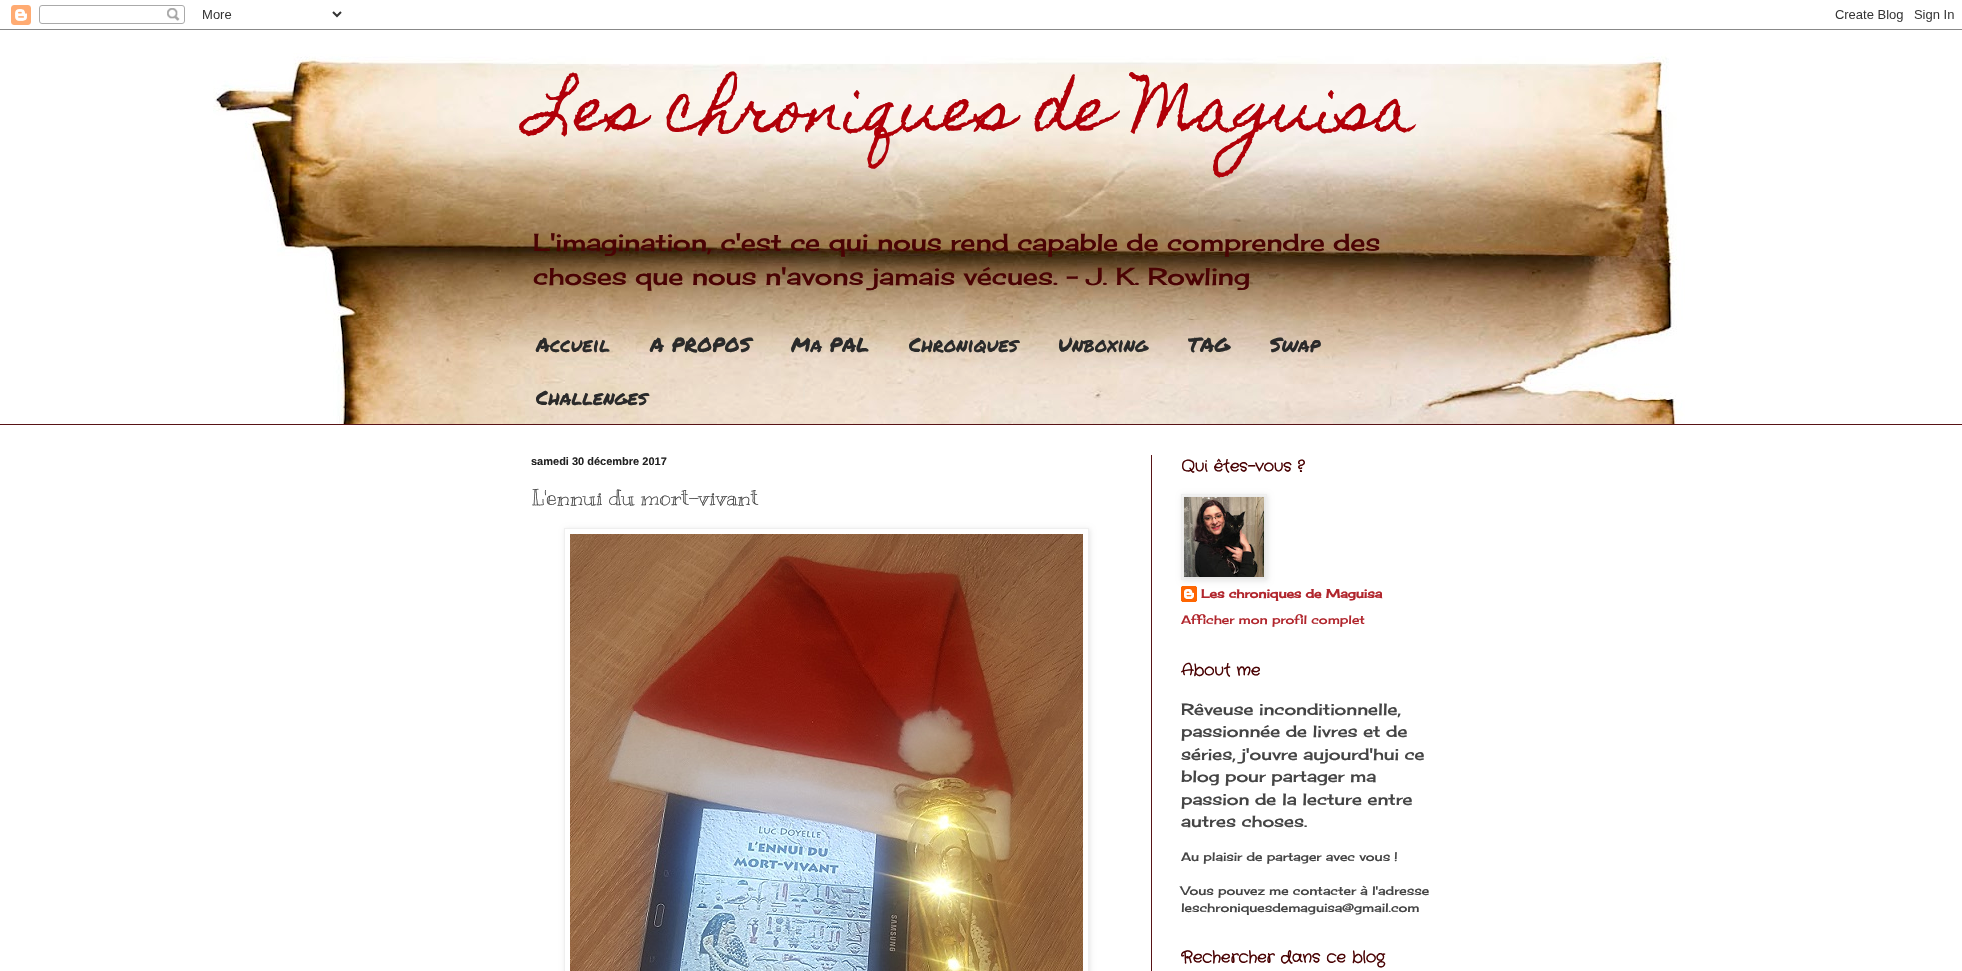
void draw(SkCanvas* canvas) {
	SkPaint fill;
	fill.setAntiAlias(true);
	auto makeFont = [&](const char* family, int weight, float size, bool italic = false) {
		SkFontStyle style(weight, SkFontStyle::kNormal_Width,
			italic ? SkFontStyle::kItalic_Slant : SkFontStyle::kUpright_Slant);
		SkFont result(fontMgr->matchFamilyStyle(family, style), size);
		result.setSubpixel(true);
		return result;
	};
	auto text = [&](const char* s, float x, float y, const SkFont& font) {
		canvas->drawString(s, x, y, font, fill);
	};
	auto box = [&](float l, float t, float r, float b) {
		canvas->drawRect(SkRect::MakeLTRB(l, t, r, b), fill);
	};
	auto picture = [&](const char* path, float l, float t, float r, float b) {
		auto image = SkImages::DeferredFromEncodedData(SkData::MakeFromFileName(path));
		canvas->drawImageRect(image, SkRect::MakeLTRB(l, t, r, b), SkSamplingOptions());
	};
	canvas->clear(0xFFFFFFFF);
	picture("image0.png", 213, 53, 1685, 424);
	picture("image1.png", 0, 5, 1962, 30);
	fill.setColor(0xFF581316);
	box(0, 424, 1962, 425);
	box(1151, 455, 1152, 971);
	canvas->save();
	canvas->clipPath(SkPathBuilder(SkPathFillType::kEvenOdd).moveTo(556, 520).lineTo(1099, 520).lineTo(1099, 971).lineTo(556, 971).close().moveTo(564, 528).lineTo(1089, 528).lineTo(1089, 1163).lineTo(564, 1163).close().detach(), true);
	fill.setColor(0x1A000000);
	fill.setMaskFilter(SkMaskFilter::MakeBlur(kNormal_SkBlurStyle, 2.5f));
	canvas->drawRect(SkRect::MakeLTRB(565, 529, 1090, 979), fill);
	fill.setMaskFilter(nullptr);
	canvas->restore();
	fill.setStyle(SkPaint::kStroke_Style);
	fill.setStrokeWidth(1);
	fill.setColor(0xFFEFEFEF);
	canvas->drawRect(SkRect::MakeLTRB(564.5f, 528.5f, 1088.5f, 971.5f), fill);
	picture("image2.png", 570, 534, 1083, 971);
	picture("image4.png", 1181, 586, 1197, 602);
	fill.setStyle(SkPaint::kFill_Style);
	fill.setColor(0x1A000000);
	fill.setMaskFilter(SkMaskFilter::MakeBlur(kNormal_SkBlurStyle, 2.5f));
	canvas->drawRect(SkRect::MakeLTRB(1182, 495, 1268, 581), fill);
	fill.setMaskFilter(nullptr);
	fill.setStyle(SkPaint::kStroke_Style);
	fill.setColor(0xFFEFEFEF);
	canvas->drawRect(SkRect::MakeLTRB(1181.5f, 494.5f, 1266.5f, 579.5f), fill);
	picture("image3.png", 1184, 497, 1264, 577);
	auto font1 = makeFont("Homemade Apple", 400, 60);
	fill.setStyle(SkPaint::kFill_Style);
	fill.setColor(0xFFB10008);
	text("Les chroniques de Maguisa", 531, 130, font1);
	auto font2 = makeFont("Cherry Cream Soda", 400, 24);
	fill.setColor(0xFF4A0304);
	text("L'imagination, c'est ce qui nous rend capable de comprendre des", 533, 251, font2);
	text("choses que nous n'avons jamais vécues. - J. K. Rowling", 533, 285, font2);
	auto font3 = makeFont("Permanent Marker", 400, 20);
	fill.setColor(0xFF2A2A2A);
	text("Accueil", 536, 352, font3);
	text("A PROPOS", 650, 352, font3);
	text("Ma PAL", 791, 352, font3);
	text("Chroniques", 909, 352, font3);
	text("Unboxing", 1058, 352, font3);
	text("TAG", 1188, 352, font3);
	text("Swap", 1270, 352, font3);
	text("Challenges", 536, 405, font3);
	auto font4 = makeFont("Liberation Sans", 700, 11);
	fill.setColor(0xFF222222);
	text("samedi 30 décembre 2017", 531, 465, font4);
	auto font5 = makeFont("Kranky", 400, 22);
	fill.setColor(0xFF454545);
	text("L'ennui du mort-vivant", 531, 505, font5);
	auto font6 = makeFont("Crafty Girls", 700, 16);
	fill.setColor(0xFF4A0304);
	text("Qui êtes-vous ?", 1181, 471, font6);
	auto font7 = makeFont("Cherry Cream Soda", 700, 12);
	fill.setColor(0xFFB1262D);
	text("Les chroniques de Maguisa", 1201, 598, font7);
	auto font8 = makeFont("Cherry Cream Soda", 400, 12);
	text("Afficher mon profil complet", 1181, 624, font8);
	fill.setColor(0xFF4A0304);
	text("About me", 1181, 675, font6);
	auto font9 = makeFont("Cherry Cream Soda", 400, 16);
	fill.setColor(0xFF454545);
	text("Rêveuse inconditionnelle,", 1181, 715, font9);
	text("passionnée de livres et de", 1181, 737, font9);
	text("séries, j'ouvre aujourd'hui ce", 1181, 760, font9);
	text("blog pour partager ma", 1181, 782, font9);
	text("passion de la lecture entre", 1181, 805, font9);
	text("autres choses.", 1181, 827, font9);
	text("Au plaisir de partager avec vous !", 1181, 861, font8);
	text("Vous pouvez me contacter à l'adresse", 1181, 895, font8);
	text("leschroniquesdemaguisa@gmail.com", 1181, 912, font8);
	fill.setColor(0xFF4A0304);
	text("Rechercher dans ce blog", 1181, 962, font6);
}
